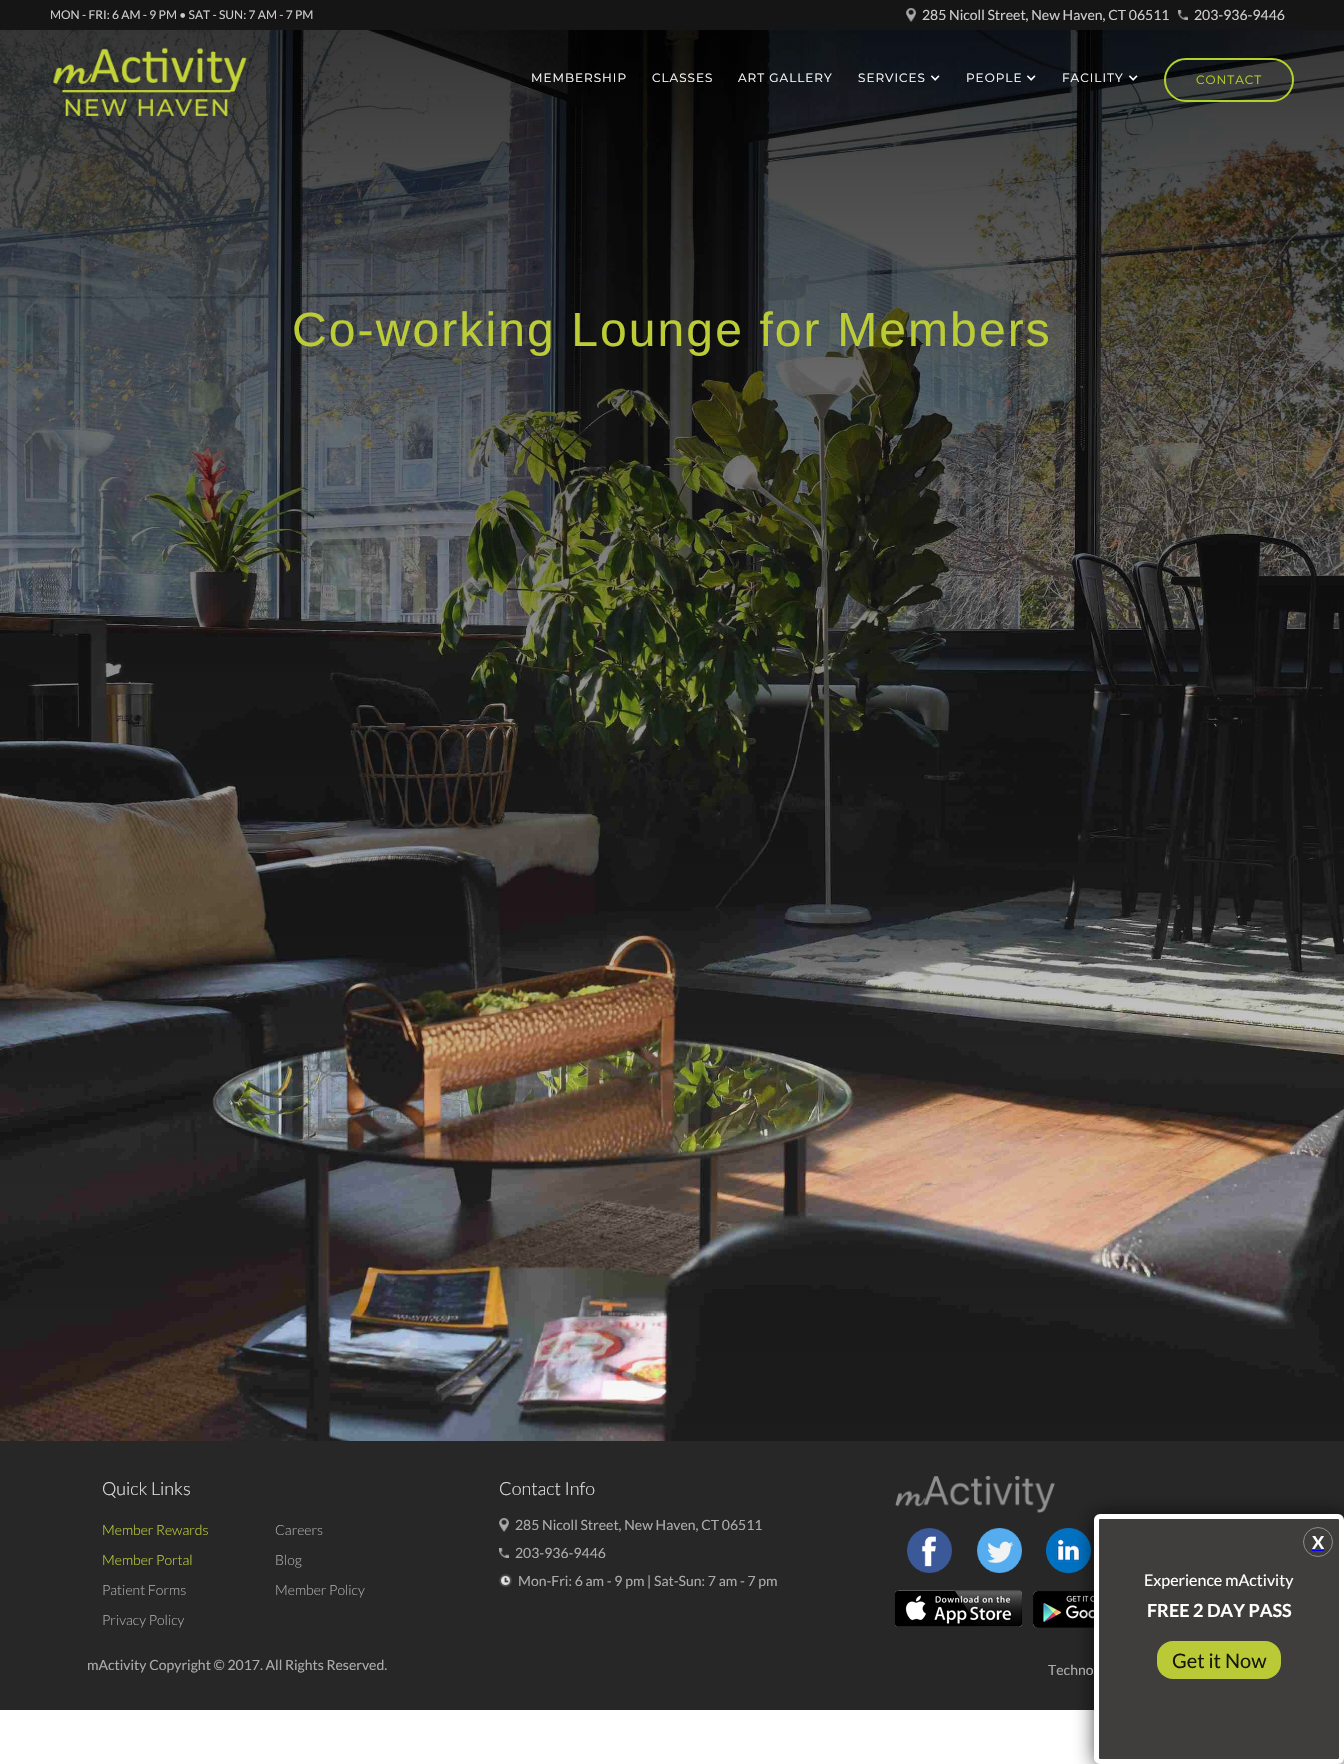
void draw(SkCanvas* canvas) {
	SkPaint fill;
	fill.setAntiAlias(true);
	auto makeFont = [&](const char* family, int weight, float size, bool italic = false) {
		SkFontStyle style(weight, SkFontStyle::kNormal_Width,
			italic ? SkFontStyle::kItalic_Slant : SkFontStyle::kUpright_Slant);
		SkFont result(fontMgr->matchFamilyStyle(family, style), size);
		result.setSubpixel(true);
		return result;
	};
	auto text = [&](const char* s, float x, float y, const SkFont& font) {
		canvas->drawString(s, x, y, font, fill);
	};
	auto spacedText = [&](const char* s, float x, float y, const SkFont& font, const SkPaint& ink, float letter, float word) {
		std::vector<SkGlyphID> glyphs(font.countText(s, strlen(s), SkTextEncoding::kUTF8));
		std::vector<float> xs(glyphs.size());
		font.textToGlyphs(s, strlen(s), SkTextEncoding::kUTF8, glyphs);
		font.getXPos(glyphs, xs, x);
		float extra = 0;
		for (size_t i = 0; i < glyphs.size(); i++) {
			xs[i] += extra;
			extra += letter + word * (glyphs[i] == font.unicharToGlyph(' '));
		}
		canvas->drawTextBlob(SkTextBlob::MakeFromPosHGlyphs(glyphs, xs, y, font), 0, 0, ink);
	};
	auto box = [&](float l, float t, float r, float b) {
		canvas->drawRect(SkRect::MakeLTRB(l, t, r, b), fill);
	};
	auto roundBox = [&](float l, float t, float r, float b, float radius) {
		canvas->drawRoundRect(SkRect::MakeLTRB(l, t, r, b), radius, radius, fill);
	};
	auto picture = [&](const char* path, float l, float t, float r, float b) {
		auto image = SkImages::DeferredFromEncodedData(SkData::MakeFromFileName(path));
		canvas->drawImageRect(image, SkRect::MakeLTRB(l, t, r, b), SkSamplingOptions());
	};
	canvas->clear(0xFFFFFFFF);
	fill.setColor(0xFF151515);
	box(0, 0, 1344, 30);
	picture("image0.png", 906, 8, 916, 22);
	picture("image1.png", 1178, 10, 1188, 20);
	picture("image2.png", 0, 30, 1344, 1441);
	picture("image3.png", 53, 47, 247, 116);
	picture("image4.png", 930, 75, 940, 81);
	picture("image5.png", 1026, 75, 1036, 81);
	picture("image6.png", 1128, 75, 1138, 81);
	fill.setStyle(SkPaint::kStroke_Style);
	fill.setStrokeWidth(2);
	fill.setColor(0xFFB2D429);
	canvas->drawRoundRect(SkRect::MakeLTRB(1165, 59, 1293, 101), 21, 21, fill);
	fill.setStyle(SkPaint::kFill_Style);
	fill.setColor(0xFF272727);
	box(0, 1441, 1344, 1710);
	picture("image7.png", 499, 1518, 509, 1532);
	picture("image8.png", 499, 1548, 509, 1558);
	picture("image9.png", 499, 1574, 512, 1587);
	picture("image10.png", 895, 1476, 1055, 1513);
	picture("image11.png", 907, 1528, 952, 1573);
	picture("image12.png", 977, 1528, 1022, 1573);
	picture("image13.png", 1046, 1528, 1091, 1573);
	picture("image14.png", 895, 1590, 1022, 1627);
	picture("image15.png", 1033, 1591, 1094, 1628);
	fill.setColor(0xBD000000);
	fill.setMaskFilter(SkMaskFilter::MakeBlur(kNormal_SkBlurStyle, 10));
	canvas->drawRoundRect(SkRect::MakeLTRB(1095, 1515, 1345, 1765), 6, 6, fill);
	fill.setMaskFilter(nullptr);
	fill.setColor(0xFF403D3D);
	canvas->drawRoundRect(SkRect::MakeLTRB(1096.5f, 1516.5f, 1341.5f, 1761.5f), 3.5f, 3.5f, fill);
	fill.setStyle(SkPaint::kStroke_Style);
	fill.setStrokeWidth(5);
	fill.setColor(0xFFFFFFFF);
	canvas->drawRoundRect(SkRect::MakeLTRB(1096.5f, 1516.5f, 1341.5f, 1761.5f), 3.5f, 3.5f, fill);
	fill.setStrokeWidth(1);
	fill.setColor(0xFF8C8B8B);
	canvas->drawCircle(1318, 1542, 14.5f, fill);
	fill.setStyle(SkPaint::kFill_Style);
	fill.setColor(0xFF0000EE);
	box(1312, 1550, 1324, 1551);
	fill.setColor(0xFFBACA37);
	roundBox(1157, 1641, 1281, 1679, 16);
	auto font1 = makeFont("Lato", 400, 12);
	fill.setColor(0xFFCCCCCC);
	text("MON - FRI: 6 AM - 9 PM • SAT - SUN: 7 AM - 7 PM", 50, 19, font1);
	auto font2 = makeFont("Lato", 400, 14);
	text("285 Nicoll Street, New Haven, CT 06511", 922, 20, font2);
	text("203-936-9446", 1194, 20, font2);
	auto font3 = makeFont("Montserrat", 400, 12);
	fill.setColor(0xFFFFFFFF);
	spacedText("MEMBERSHIP", 531, 82, font3, fill, 1, 0);
	spacedText("CLASSES", 652, 82, font3, fill, 1, 0);
	spacedText("ART GALLERY", 738, 82, font3, fill, 1, 0);
	spacedText("SERVICES", 858, 82, font3, fill, 1, 0);
	spacedText("PEOPLE", 966, 82, font3, fill, 1, 0);
	spacedText("FACILITY", 1062, 82, font3, fill, 1, 0);
	fill.setColor(0xFFB2D429);
	spacedText("CONTACT", 1196, 84, font3, fill, 1, 0);
	auto font4 = makeFont("Liberation Sans", 400, 48);
	fill.setColor(0xFFBBCC37);
	spacedText("Co-working Lounge for Members", 292, 346, font4, fill, 2.1f, 0);
	auto font5 = makeFont("Lato", 300, 18);
	fill.setColor(0xFFE1E1E1);
	text("Quick Links", 102, 1495, font5);
	auto font6 = makeFont("Lato", 300, 14);
	fill.setColor(0xFFBBCC37);
	text("Member Rewards", 102, 1535, font6);
	text("Member Portal", 102, 1565, font6);
	fill.setColor(0xFFABABAB);
	text("Patient Forms", 102, 1595, font6);
	text("Privacy Policy", 102, 1625, font6);
	text("Careers", 275, 1535, font6);
	text("Blog", 275, 1565, font6);
	text("Member Policy", 275, 1595, font6);
	fill.setColor(0xFFE1E1E1);
	text("Contact Info", 499, 1495, font5);
	fill.setColor(0xFFABABAB);
	text("285 Nicoll Street, New Haven, CT 06511", 515, 1530, font2);
	text("203-936-9446", 515, 1558, font2);
	text("Mon-Fri: 6 am - 9 pm | Sat-Sun: 7 am - 7 pm", 518, 1586, font2);
	text("mActivity Copyright © 2017. All Rights Reserved.", 87, 1670, font2);
	text("Techno", 1048, 1675, font2);
	auto font7 = makeFont("Lato", 700, 18);
	fill.setColor(0xFFFFFFFF);
	text("X", 1312, 1549, font7);
	auto font8 = makeFont("Lato", 400, 16);
	text("Experience mActivity", 1144, 1586, font8);
	text("FREE 2 DAY PASS", 1147, 1617, font7);
	auto font9 = makeFont("Lato", 400, 20);
	fill.setColor(0xFF161807);
	text("Get it Now", 1172, 1668, font9);
}
